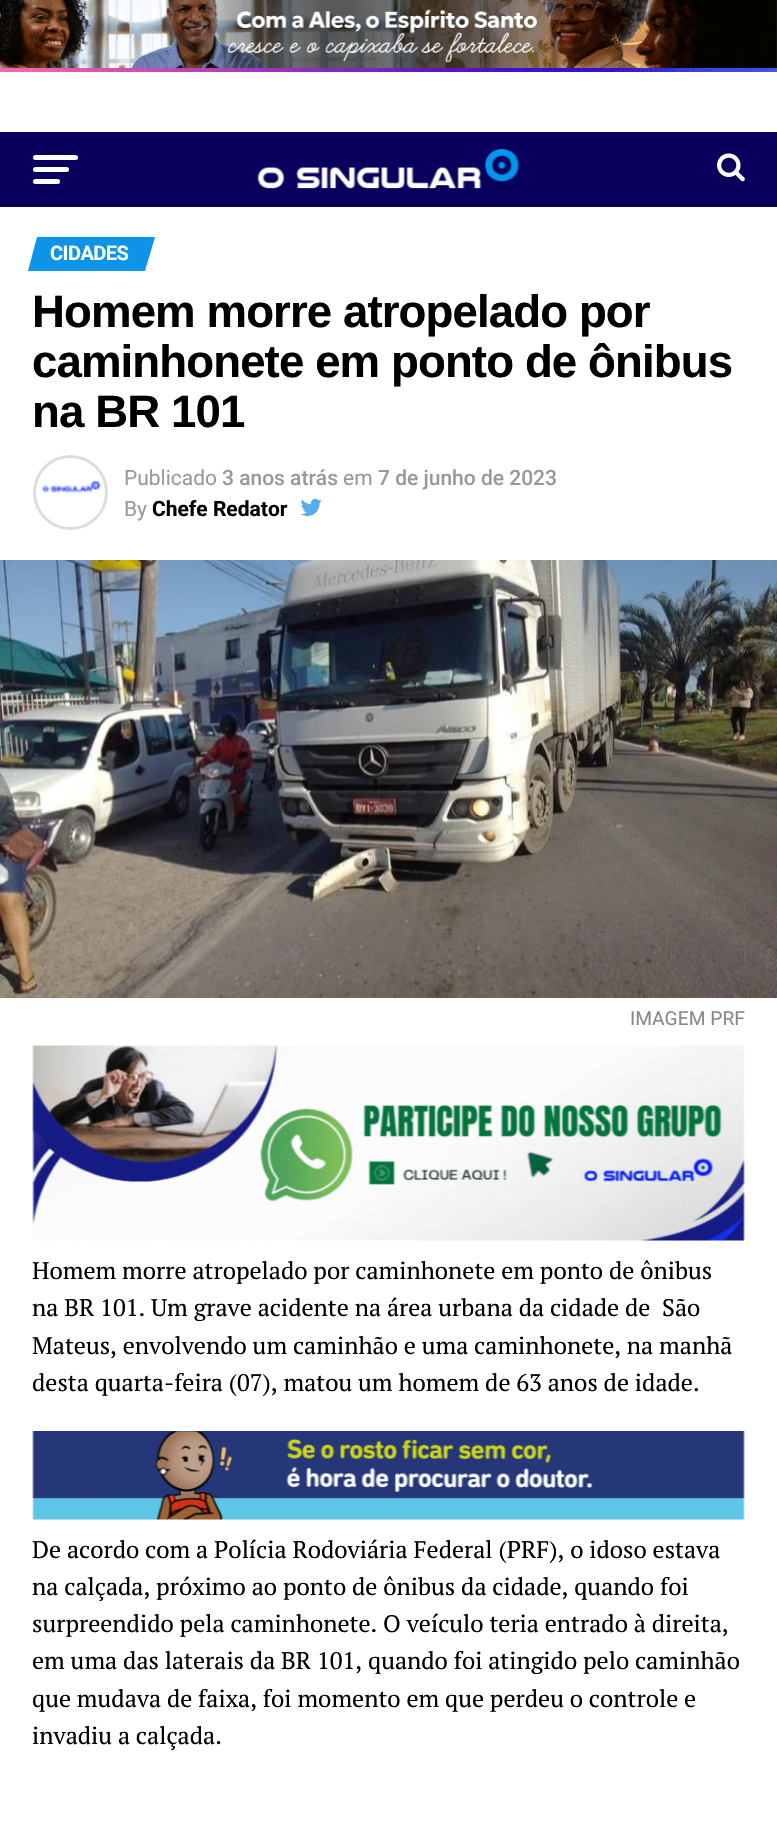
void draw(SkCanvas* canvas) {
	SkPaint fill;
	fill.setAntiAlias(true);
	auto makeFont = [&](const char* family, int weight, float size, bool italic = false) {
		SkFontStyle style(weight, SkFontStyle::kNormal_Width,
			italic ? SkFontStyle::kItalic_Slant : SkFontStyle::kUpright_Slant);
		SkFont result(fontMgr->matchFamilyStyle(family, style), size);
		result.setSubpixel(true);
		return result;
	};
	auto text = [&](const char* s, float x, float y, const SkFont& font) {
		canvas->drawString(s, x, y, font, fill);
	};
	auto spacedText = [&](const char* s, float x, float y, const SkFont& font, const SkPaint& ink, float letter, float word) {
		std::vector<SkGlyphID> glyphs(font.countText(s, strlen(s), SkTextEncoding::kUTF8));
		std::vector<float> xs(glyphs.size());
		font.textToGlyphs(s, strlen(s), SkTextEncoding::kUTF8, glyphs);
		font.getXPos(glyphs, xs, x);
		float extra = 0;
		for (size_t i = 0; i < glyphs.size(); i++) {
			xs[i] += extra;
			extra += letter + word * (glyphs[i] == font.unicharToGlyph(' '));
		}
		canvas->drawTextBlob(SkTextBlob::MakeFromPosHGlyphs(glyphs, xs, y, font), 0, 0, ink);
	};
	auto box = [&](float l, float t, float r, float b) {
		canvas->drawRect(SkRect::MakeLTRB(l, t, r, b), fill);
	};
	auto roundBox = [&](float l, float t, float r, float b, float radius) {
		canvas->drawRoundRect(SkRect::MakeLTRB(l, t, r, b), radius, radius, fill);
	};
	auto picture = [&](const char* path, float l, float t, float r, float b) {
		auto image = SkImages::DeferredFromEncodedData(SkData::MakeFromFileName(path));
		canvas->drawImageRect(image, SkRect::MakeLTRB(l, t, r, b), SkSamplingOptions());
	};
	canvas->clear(0xFFFFFFFF);
	picture("image0.png", 0, 0, 777, 72);
	fill.setColor(0xFF09005E);
	box(0, 132, 777, 207);
	fill.setColor(0xFFFFFFFF);
	roundBox(33, 155, 78, 160, 2.5f);
	roundBox(33, 167, 69, 172, 2.5f);
	roundBox(33, 179, 60, 184, 2.5f);
	picture("image1.png", 257, 149, 520, 189);
	picture("image2.png", 717, 153, 745, 182);
	fill.setColor(0xFF0D94E8);
	canvas->drawPath(SkPathBuilder().moveTo(37, 237).lineTo(155, 237).lineTo(145, 271).lineTo(28, 271).close().detach(), fill);
	fill.setStyle(SkPaint::kStroke_Style);
	fill.setStrokeWidth(3);
	fill.setColor(0xFFDDDDDD);
	canvas->drawCircle(70.5f, 492.5f, 36, fill);
	picture("image3.png", 41, 480, 102, 493);
	picture("image4.png", 300, 498, 322, 516);
	picture("image5.png", 0, 560, 777, 998);
	picture("image6.png", 32, 1045, 745, 1241);
	picture("image7.png", 32, 1431, 745, 1520);
	auto font1 = makeFont("Roboto", 700, 20);
	fill.setStyle(SkPaint::kFill_Style);
	fill.setColor(0xFFFFFFFF);
	spacedText("CIDADES", 50, 260, font1, fill, -0.5f, 0);
	auto font2 = makeFont("Liberation Sans", 700, 45.6f);
	fill.setColor(0xFF000000);
	spacedText("Homem morre atropelado por", 32, 327, font2, fill, -0.9f, 0);
	spacedText("caminhonete em ponto de ônibus", 32, 377, font2, fill, -0.9f, 0);
	spacedText("na BR 101", 32, 427, font2, fill, -0.9f, 0);
	auto font3 = makeFont("Roboto", 400, 21);
	fill.setColor(0xFF999999);
	text("Publicado", 124, 485, font3);
	auto font4 = makeFont("Roboto", 500, 21);
	text("3 anos atrás", 222, 485, font4);
	text("em", 343, 485, font3);
	text("7 de junho de 2023", 378, 485, font4);
	text("By", 124, 516, font3);
	auto font5 = makeFont("Roboto", 700, 21);
	fill.setColor(0xFF000000);
	text("Chefe Redator", 152, 516, font5);
	auto font6 = makeFont("Roboto", 400, 19.25f);
	fill.setColor(0xFF888888);
	text("IMAGEM PRF", 630, 1025, font6);
	auto font7 = makeFont("PT Serif", 400, 24);
	fill.setColor(0xFF000000);
	text("Homem morre atropelado por caminhonete em ponto de ônibus", 32, 1279, font7);
	text("na BR 101. Um grave acidente na área urbana da cidade de  São", 32, 1316, font7);
	text("Mateus, envolvendo um caminhão e uma caminhonete, na manhã", 32, 1354, font7);
	text("desta quarta-feira (07), matou um homem de 63 anos de idade.", 32, 1391, font7);
	text("De acordo com a Polícia Rodoviária Federal (PRF), o idoso estava", 32, 1558, font7);
	text("na calçada, próximo ao ponto de ônibus da cidade, quando foi", 32, 1595, font7);
	text("surpreendido pela caminhonete. O veículo teria entrado à direita,", 32, 1632, font7);
	text("em uma das laterais da BR 101, quando foi atingido pelo caminhão", 32, 1669, font7);
	text("que mudava de faixa, foi momento em que perdeu o controle e", 32, 1707, font7);
	text("invadiu a calçada.", 32, 1744, font7);
}
